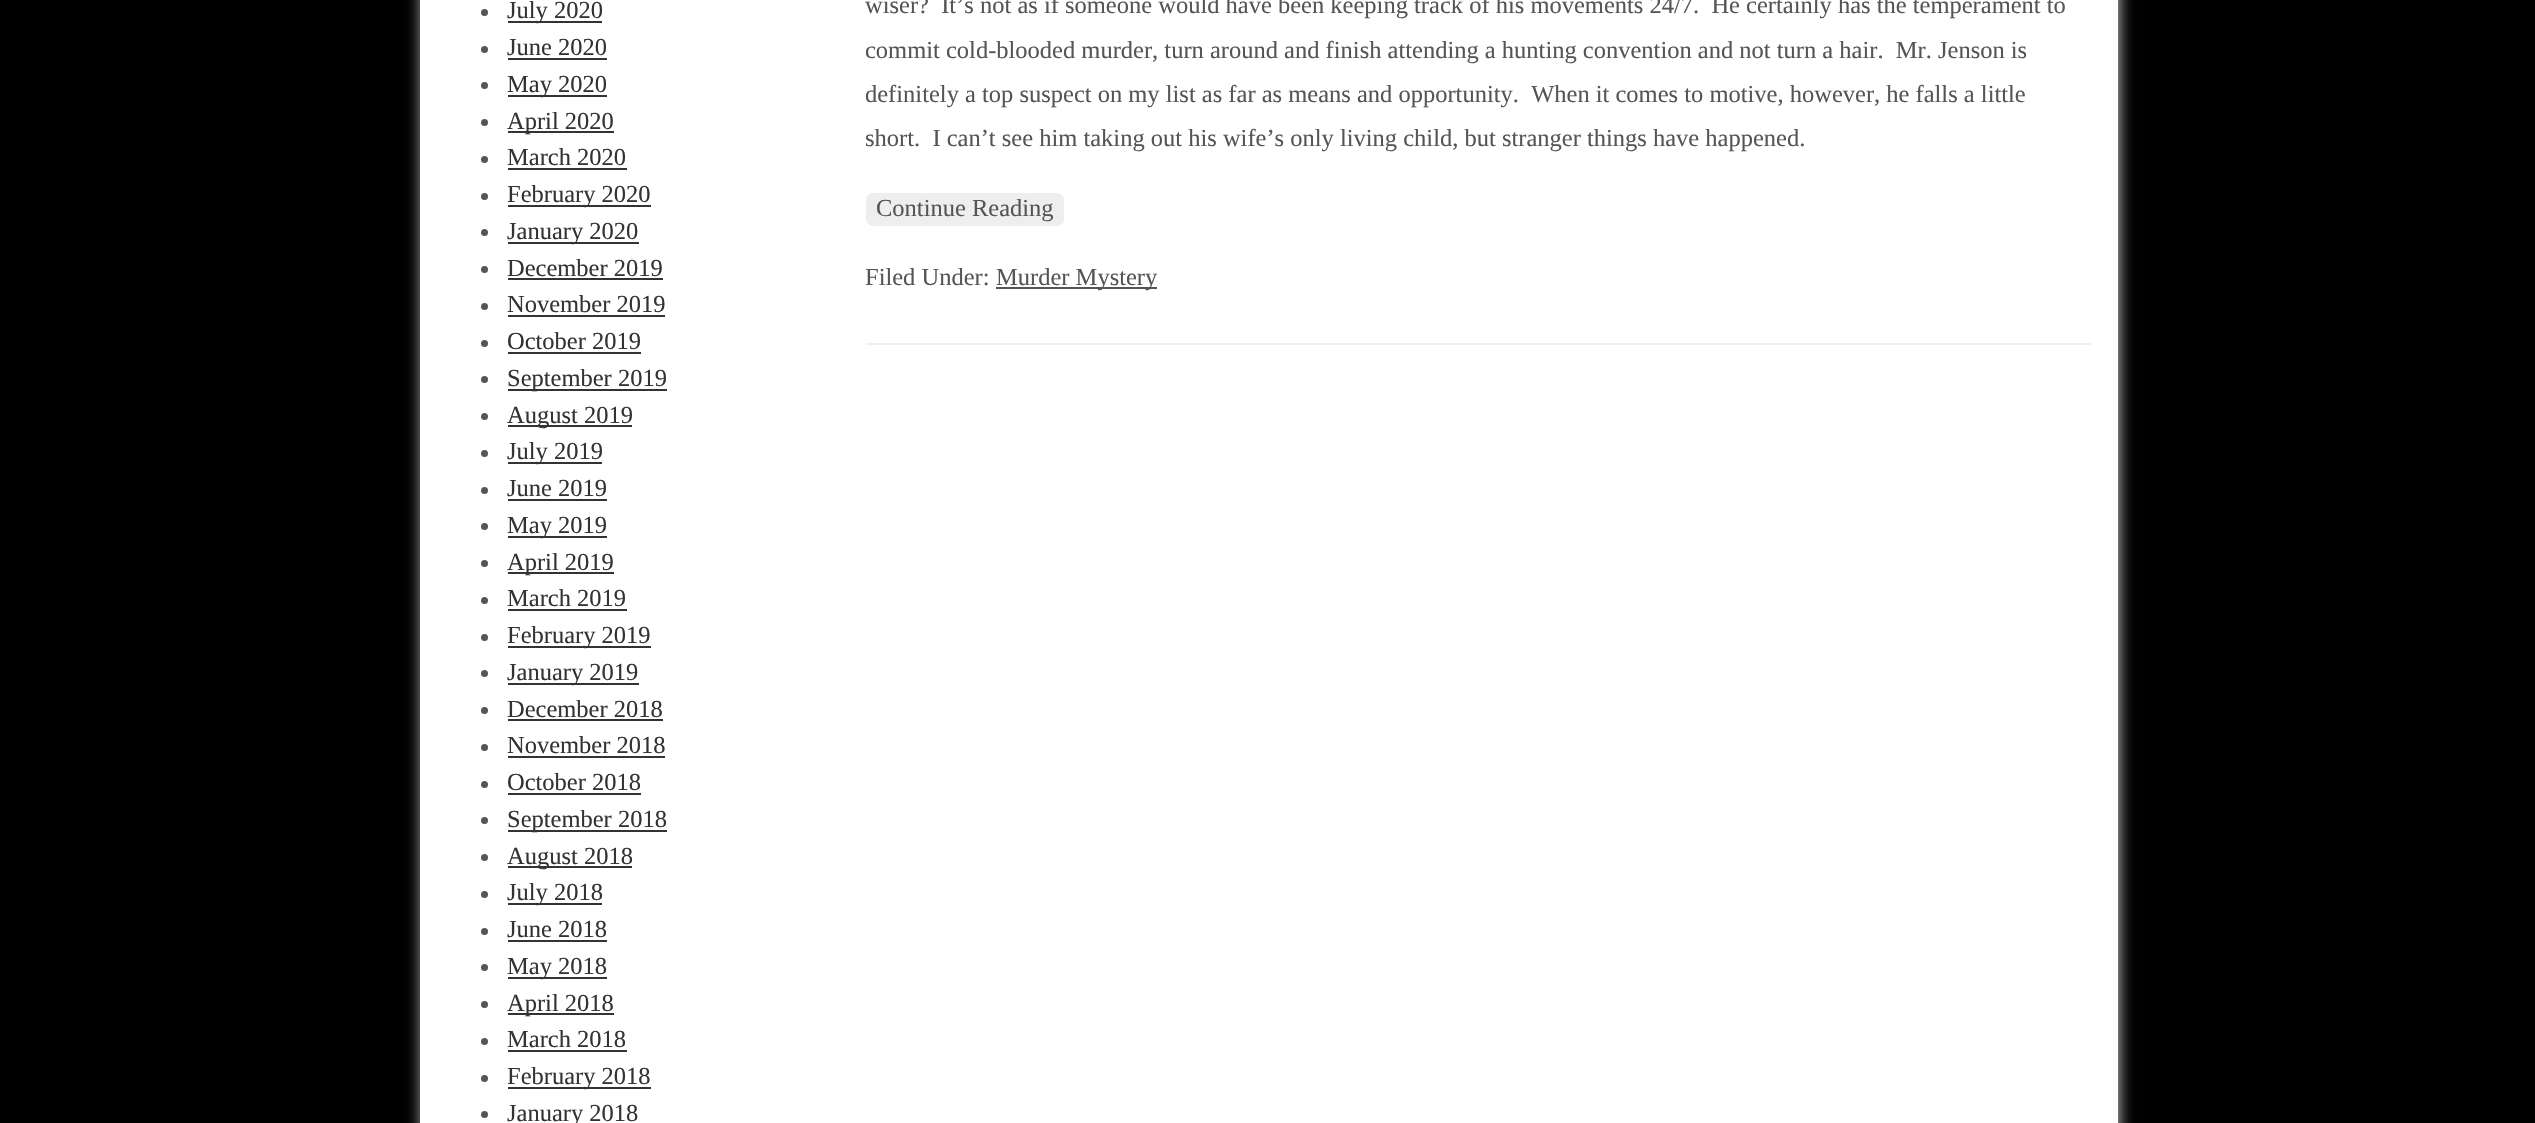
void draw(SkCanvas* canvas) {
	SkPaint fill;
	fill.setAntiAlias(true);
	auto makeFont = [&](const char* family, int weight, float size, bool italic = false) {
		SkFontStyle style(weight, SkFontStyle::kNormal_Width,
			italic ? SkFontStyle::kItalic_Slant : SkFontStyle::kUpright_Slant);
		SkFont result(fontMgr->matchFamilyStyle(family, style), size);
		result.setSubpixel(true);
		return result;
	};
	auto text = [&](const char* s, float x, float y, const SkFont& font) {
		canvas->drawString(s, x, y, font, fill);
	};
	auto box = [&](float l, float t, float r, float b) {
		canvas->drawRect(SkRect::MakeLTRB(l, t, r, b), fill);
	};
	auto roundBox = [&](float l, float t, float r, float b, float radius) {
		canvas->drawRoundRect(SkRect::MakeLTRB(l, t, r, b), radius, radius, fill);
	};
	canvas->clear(0xFF000000);
	fill.setColor(0xFFC7C7C7);
	fill.setMaskFilter(SkMaskFilter::MakeBlur(kNormal_SkBlurStyle, 7));
	canvas->drawRect(SkRect::MakeLTRB(422, -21, 2119, 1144), fill);
	fill.setMaskFilter(nullptr);
	fill.setColor(0xFFFFFFFF);
	box(420, 0, 2118, 1123);
	fill.setColor(0xFF555555);
	canvas->drawCircle(484.5f, 12.5f, 3.5f, fill);
	fill.setColor(0xFF333333);
	box(508, 21, 602, 23);
	fill.setColor(0xFF555555);
	canvas->drawCircle(484.5f, 49.5f, 3.5f, fill);
	fill.setColor(0xFF333333);
	box(508, 58, 607, 60);
	fill.setColor(0xFF555555);
	canvas->drawCircle(484.5f, 85.5f, 3.5f, fill);
	fill.setColor(0xFF333333);
	box(508, 95, 607, 97);
	fill.setColor(0xFF555555);
	canvas->drawCircle(484.5f, 122.5f, 3.5f, fill);
	fill.setColor(0xFF333333);
	box(508, 131, 614, 133);
	fill.setColor(0xFF555555);
	canvas->drawCircle(484.5f, 159.5f, 3.5f, fill);
	fill.setColor(0xFF333333);
	box(508, 168, 627, 170);
	fill.setColor(0xFF555555);
	canvas->drawCircle(484.5f, 196.5f, 3.5f, fill);
	fill.setColor(0xFF333333);
	box(508, 205, 651, 207);
	fill.setColor(0xFF555555);
	canvas->drawCircle(484.5f, 232.5f, 3.5f, fill);
	fill.setColor(0xFF333333);
	box(508, 242, 639, 244);
	fill.setColor(0xFF555555);
	canvas->drawCircle(484.5f, 269.5f, 3.5f, fill);
	fill.setColor(0xFF333333);
	box(508, 278, 663, 280);
	fill.setColor(0xFF555555);
	canvas->drawCircle(484.5f, 306.5f, 3.5f, fill);
	fill.setColor(0xFF333333);
	box(508, 315, 665, 317);
	fill.setColor(0xFF555555);
	canvas->drawCircle(484.5f, 343.5f, 3.5f, fill);
	fill.setColor(0xFF333333);
	box(508, 352, 641, 354);
	fill.setColor(0xFF555555);
	canvas->drawCircle(484.5f, 379.5f, 3.5f, fill);
	fill.setColor(0xFF333333);
	box(508, 389, 667, 391);
	fill.setColor(0xFF555555);
	canvas->drawCircle(484.5f, 416.5f, 3.5f, fill);
	fill.setColor(0xFF333333);
	box(508, 425, 632, 427);
	fill.setColor(0xFF555555);
	canvas->drawCircle(484.5f, 453.5f, 3.5f, fill);
	fill.setColor(0xFF333333);
	box(508, 462, 602, 464);
	fill.setColor(0xFF555555);
	canvas->drawCircle(484.5f, 490.5f, 3.5f, fill);
	fill.setColor(0xFF333333);
	box(508, 499, 607, 501);
	fill.setColor(0xFF555555);
	canvas->drawCircle(484.5f, 526.5f, 3.5f, fill);
	fill.setColor(0xFF333333);
	box(508, 536, 607, 538);
	fill.setColor(0xFF555555);
	canvas->drawCircle(484.5f, 563.5f, 3.5f, fill);
	fill.setColor(0xFF333333);
	box(508, 572, 614, 574);
	fill.setColor(0xFF555555);
	canvas->drawCircle(484.5f, 600.5f, 3.5f, fill);
	fill.setColor(0xFF333333);
	box(508, 609, 627, 611);
	fill.setColor(0xFF555555);
	canvas->drawCircle(484.5f, 637.5f, 3.5f, fill);
	fill.setColor(0xFF333333);
	box(508, 646, 651, 648);
	fill.setColor(0xFF555555);
	canvas->drawCircle(484.5f, 673.5f, 3.5f, fill);
	fill.setColor(0xFF333333);
	box(508, 683, 639, 685);
	fill.setColor(0xFF555555);
	canvas->drawCircle(484.5f, 710.5f, 3.5f, fill);
	fill.setColor(0xFF333333);
	box(508, 719, 663, 721);
	fill.setColor(0xFF555555);
	canvas->drawCircle(484.5f, 747.5f, 3.5f, fill);
	fill.setColor(0xFF333333);
	box(508, 756, 665, 758);
	fill.setColor(0xFF555555);
	canvas->drawCircle(484.5f, 784.5f, 3.5f, fill);
	fill.setColor(0xFF333333);
	box(508, 793, 641, 795);
	fill.setColor(0xFF555555);
	canvas->drawCircle(484.5f, 820.5f, 3.5f, fill);
	fill.setColor(0xFF333333);
	box(508, 830, 667, 832);
	fill.setColor(0xFF555555);
	canvas->drawCircle(484.5f, 857.5f, 3.5f, fill);
	fill.setColor(0xFF333333);
	box(508, 866, 632, 868);
	fill.setColor(0xFF555555);
	canvas->drawCircle(484.5f, 894.5f, 3.5f, fill);
	fill.setColor(0xFF333333);
	box(508, 903, 602, 905);
	fill.setColor(0xFF555555);
	canvas->drawCircle(484.5f, 931.5f, 3.5f, fill);
	fill.setColor(0xFF333333);
	box(508, 940, 607, 942);
	fill.setColor(0xFF555555);
	canvas->drawCircle(484.5f, 967.5f, 3.5f, fill);
	fill.setColor(0xFF333333);
	box(508, 977, 607, 979);
	fill.setColor(0xFF555555);
	canvas->drawCircle(484.5f, 1004.5f, 3.5f, fill);
	fill.setColor(0xFF333333);
	box(508, 1013, 614, 1015);
	fill.setColor(0xFF555555);
	canvas->drawCircle(484.5f, 1041.5f, 3.5f, fill);
	fill.setColor(0xFF333333);
	box(508, 1050, 627, 1052);
	fill.setColor(0xFF555555);
	canvas->drawCircle(484.5f, 1078.5f, 3.5f, fill);
	fill.setColor(0xFF333333);
	box(508, 1087, 651, 1089);
	fill.setColor(0xFF555555);
	canvas->drawCircle(484.5f, 1114.5f, 3.5f, fill);
	fill.setColor(0xFFEFEFEF);
	box(866, 343, 2091, 345);
	fill.setColor(0xFFEEEEEE);
	roundBox(866, 193, 1064, 226, 7);
	fill.setColor(0xFF555555);
	box(996, 287, 1157, 289);
	auto font1 = makeFont("Liberation Serif", 400, 24.5f);
	fill.setColor(0xFF333333);
	text("July 2020", 507, 18, font1);
	text("June 2020", 507, 55, font1);
	text("May 2020", 507, 92, font1);
	text("April 2020", 507, 129, font1);
	text("March 2020", 507, 165, font1);
	text("February 2020", 507, 202, font1);
	text("January 2020", 507, 239, font1);
	text("December 2019", 507, 276, font1);
	text("November 2019", 507, 312, font1);
	text("October 2019", 507, 349, font1);
	text("September 2019", 507, 386, font1);
	text("August 2019", 507, 423, font1);
	text("July 2019", 507, 459, font1);
	text("June 2019", 507, 496, font1);
	text("May 2019", 507, 533, font1);
	text("April 2019", 507, 570, font1);
	text("March 2019", 507, 606, font1);
	text("February 2019", 507, 643, font1);
	text("January 2019", 507, 680, font1);
	text("December 2018", 507, 717, font1);
	text("November 2018", 507, 753, font1);
	text("October 2018", 507, 790, font1);
	text("September 2018", 507, 827, font1);
	text("August 2018", 507, 864, font1);
	text("July 2018", 507, 900, font1);
	text("June 2018", 507, 937, font1);
	text("May 2018", 507, 974, font1);
	text("April 2018", 507, 1011, font1);
	text("March 2018", 507, 1047, font1);
	text("February 2018", 507, 1084, font1);
	text("January 2018", 507, 1121, font1);
	fill.setColor(0xFF555555);
	text("wiser?  It’s not as if someone would have been keeping track of his movements 24/7.  He certainly has the temperament to", 865, 13, font1);
	text("commit cold-blooded murder, turn around and finish attending a hunting convention and not turn a hair.  Mr. Jenson is", 865, 58, font1);
	text("definitely a top suspect on my list as far as means and opportunity.  When it comes to motive, however, he falls a little", 865, 102, font1);
	text("short.  I can’t see him taking out his wife’s only living child, but stranger things have happened.", 865, 146, font1);
	text("Continue Reading", 876, 216, font1);
	text("Filed Under:", 865, 285, font1);
	text("Murder Mystery", 996, 285, font1);
}
